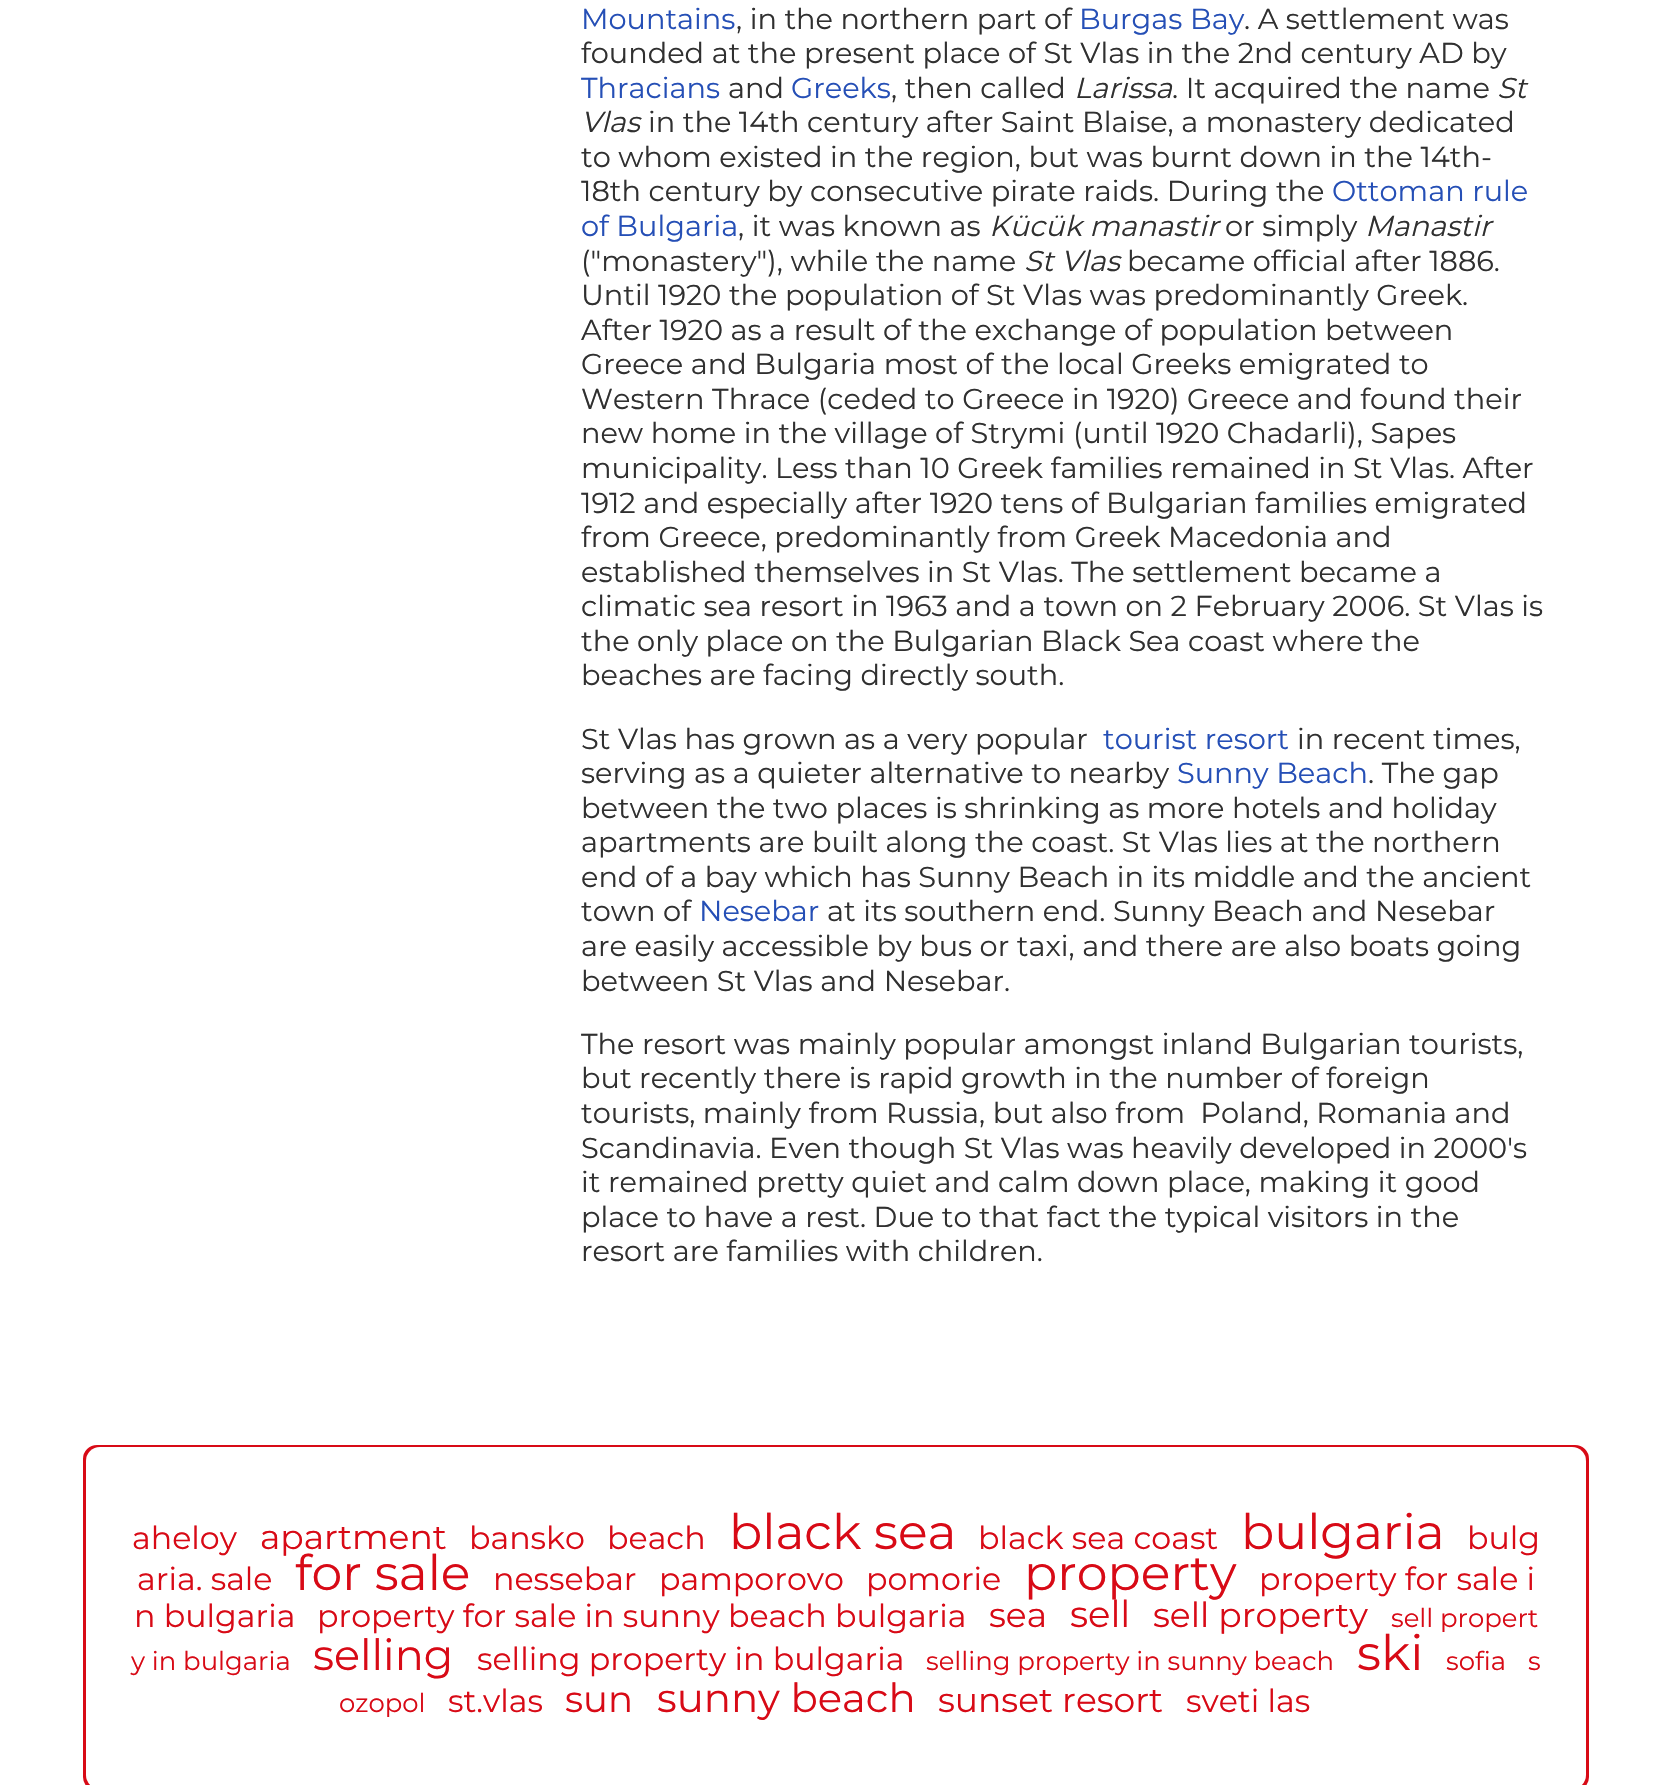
void draw(SkCanvas* canvas) {
	SkPaint fill;
	fill.setAntiAlias(true);
	auto makeFont = [&](const char* family, int weight, float size, bool italic = false) {
		SkFontStyle style(weight, SkFontStyle::kNormal_Width,
			italic ? SkFontStyle::kItalic_Slant : SkFontStyle::kUpright_Slant);
		SkFont result(fontMgr->matchFamilyStyle(family, style), size);
		result.setSubpixel(true);
		return result;
	};
	auto text = [&](const char* s, float x, float y, const SkFont& font) {
		canvas->drawString(s, x, y, font, fill);
	};
	auto roundBox = [&](float l, float t, float r, float b, float radius) {
		canvas->drawRoundRect(SkRect::MakeLTRB(l, t, r, b), radius, radius, fill);
	};
	canvas->clear(0xFFFFFFFF);
	fill.setColor(0xFFD80A16);
	canvas->drawRoundRect(SkRect::MakeLTRB(84, 1446, 1588, 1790), 13, 13, fill);
	fill.setStyle(SkPaint::kStroke_Style);
	fill.setStrokeWidth(2);
	canvas->drawRoundRect(SkRect::MakeLTRB(84, 1446, 1588, 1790), 13, 13, fill);
	fill.setStyle(SkPaint::kFill_Style);
	fill.setColor(0xFFFFFFFF);
	roundBox(86, 1447, 1586, 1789, 14);
	auto font1 = makeFont("Montserrat", 400, 28.8f);
	fill.setColor(0xFF254FB6);
	text("Mountains", 581, 29, font1);
	fill.setColor(0xFF303030);
	text(", in the northern part of", 736, 29, font1);
	fill.setColor(0xFF254FB6);
	text("Burgas Bay", 1079, 29, font1);
	fill.setColor(0xFF303030);
	text(". A settlement was", 1244, 29, font1);
	text("founded at the present place of St Vlas in the 2nd century AD by", 581, 63, font1);
	fill.setColor(0xFF254FB6);
	text("Thracians", 581, 98, font1);
	fill.setColor(0xFF303030);
	text("and", 728, 98, font1);
	fill.setColor(0xFF254FB6);
	text("Greeks", 791, 98, font1);
	fill.setColor(0xFF303030);
	text(", then called", 891, 98, font1);
	auto font2 = makeFont("Montserrat", 400, 28.8f, true);
	text("Larissa", 1074, 98, font2);
	text(". It acquired the name", 1172, 98, font1);
	text("St", 1497, 98, font2);
	text("Vlas", 581, 132, font2);
	text("in the 14th century after Saint Blaise, a monastery dedicated", 648, 132, font1);
	text("to whom existed in the region, but was burnt down in the 14th-", 581, 167, font1);
	text("18th century by consecutive pirate raids. During the", 581, 201, font1);
	fill.setColor(0xFF254FB6);
	text("Ottoman rule", 1332, 201, font1);
	text("of Bulgaria", 581, 236, font1);
	fill.setColor(0xFF303030);
	text(", it was known as", 738, 236, font1);
	text("Kücük manastir", 989, 236, font2);
	text("or simply", 1225, 236, font1);
	text("Manastir", 1365, 236, font2);
	text("(\"monastery\"), while the name", 581, 271, font1);
	text("St Vlas", 1024, 271, font2);
	text("became official after 1886.", 1127, 271, font1);
	text("Until 1920 the population of St Vlas was predominantly Greek.", 581, 305, font1);
	text("After 1920 as a result of the exchange of population between", 581, 340, font1);
	text("Greece and Bulgaria most of the local Greeks emigrated to", 581, 374, font1);
	text("Western Thrace (ceded to Greece in 1920) Greece and found their", 581, 409, font1);
	text("new home in the village of Strymi (until 1920 Chadarli), Sapes", 581, 443, font1);
	text("municipality. Less than 10 Greek families remained in St Vlas. After", 581, 478, font1);
	text("1912 and especially after 1920 tens of Bulgarian families emigrated", 581, 513, font1);
	text("from Greece, predominantly from Greek Macedonia and", 581, 547, font1);
	text("established themselves in St Vlas. The settlement became a", 581, 582, font1);
	text("climatic sea resort in 1963 and a town on 2 February 2006. St Vlas is", 581, 616, font1);
	text("the only place on the Bulgarian Black Sea coast where the", 581, 651, font1);
	text("beaches are facing directly south.", 581, 685, font1);
	text("St Vlas has grown as a very popular", 581, 749, font1);
	fill.setColor(0xFF254FB6);
	text("tourist resort", 1103, 749, font1);
	fill.setColor(0xFF303030);
	text("in recent times,", 1297, 749, font1);
	text("serving as a quieter alternative to nearby", 581, 783, font1);
	fill.setColor(0xFF254FB6);
	text("Sunny Beach", 1177, 783, font1);
	fill.setColor(0xFF303030);
	text(". The gap", 1368, 783, font1);
	text("between the two places is shrinking as more hotels and holiday", 581, 818, font1);
	text("apartments are built along the coast. St Vlas lies at the northern", 581, 852, font1);
	text("end of a bay which has Sunny Beach in its middle and the ancient", 581, 887, font1);
	text("town of", 581, 921, font1);
	fill.setColor(0xFF254FB6);
	text("Nesebar", 699, 921, font1);
	fill.setColor(0xFF303030);
	text("at its southern end. Sunny Beach and Nesebar", 827, 921, font1);
	text("are easily accessible by bus or taxi, and there are also boats going", 581, 956, font1);
	text("between St Vlas and Nesebar.", 581, 991, font1);
	text("The resort was mainly popular amongst inland Bulgarian tourists,", 581, 1054, font1);
	text("but recently there is rapid growth in the number of foreign", 581, 1088, font1);
	text("tourists, mainly from Russia, but also from  Poland, Romania and", 581, 1123, font1);
	text("Scandinavia. Even though St Vlas was heavily developed in 2000's", 581, 1158, font1);
	text("it remained pretty quiet and calm down place, making it good", 581, 1192, font1);
	text("place to have a rest. Due to that fact the typical visitors in the", 581, 1227, font1);
	text("resort are families with children.", 581, 1261, font1);
	auto font3 = makeFont("Montserrat", 400, 31.7f);
	fill.setColor(0xFFD80A16);
	text("aheloy", 132, 1549, font3);
	auto font4 = makeFont("Montserrat", 400, 34.5f);
	text("apartment", 260, 1549, font4);
	text("bansko", 469, 1549, font3);
	text("beach", 607, 1549, font3);
	auto font5 = makeFont("Montserrat", 400, 49);
	text("black sea", 729, 1549, font5);
	text("black sea coast", 978, 1549, font3);
	text("bulgaria", 1241, 1549, font5);
	text("bulg", 1467, 1549, font3);
	text("aria. sale", 137, 1590, font3);
	text("for sale", 295, 1590, font5);
	text("nessebar", 493, 1590, font3);
	text("pamporovo", 659, 1590, font3);
	text("pomorie", 866, 1590, font3);
	text("property", 1024, 1590, font5);
	text("property for sale i", 1259, 1590, font3);
	text("n bulgaria", 134, 1627, font3);
	text("property for sale in sunny beach bulgaria", 317, 1627, font3);
	text("sea", 989, 1627, font4);
	auto font6 = makeFont("Montserrat", 400, 37);
	text("sell", 1070, 1627, font6);
	text("sell property", 1153, 1627, font4);
	auto font7 = makeFont("Montserrat", 400, 25.9f);
	text("sell propert", 1391, 1627, font7);
	text("y in bulgaria", 131, 1670, font7);
	auto font8 = makeFont("Montserrat", 400, 43);
	text("selling", 313, 1670, font8);
	text("selling property in bulgaria", 477, 1670, font3);
	text("selling property in sunny beach", 926, 1670, font7);
	text("ski", 1357, 1670, font5);
	text("sofia", 1446, 1670, font7);
	text("s", 1528, 1670, font7);
	text("ozopol", 339, 1712, font7);
	text("st.vlas", 448, 1712, font3);
	text("sun", 565, 1712, font6);
	auto font9 = makeFont("Montserrat", 400, 40.25f);
	text("sunny beach", 657, 1712, font9);
	text("sunset resort", 938, 1712, font4);
	text("sveti las", 1186, 1712, font3);
}
